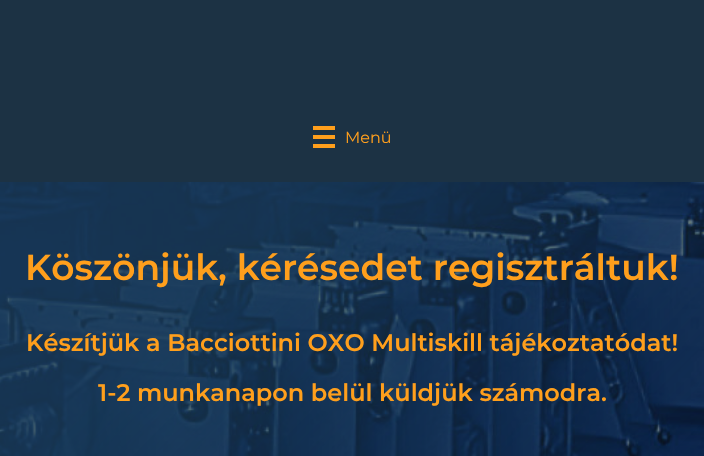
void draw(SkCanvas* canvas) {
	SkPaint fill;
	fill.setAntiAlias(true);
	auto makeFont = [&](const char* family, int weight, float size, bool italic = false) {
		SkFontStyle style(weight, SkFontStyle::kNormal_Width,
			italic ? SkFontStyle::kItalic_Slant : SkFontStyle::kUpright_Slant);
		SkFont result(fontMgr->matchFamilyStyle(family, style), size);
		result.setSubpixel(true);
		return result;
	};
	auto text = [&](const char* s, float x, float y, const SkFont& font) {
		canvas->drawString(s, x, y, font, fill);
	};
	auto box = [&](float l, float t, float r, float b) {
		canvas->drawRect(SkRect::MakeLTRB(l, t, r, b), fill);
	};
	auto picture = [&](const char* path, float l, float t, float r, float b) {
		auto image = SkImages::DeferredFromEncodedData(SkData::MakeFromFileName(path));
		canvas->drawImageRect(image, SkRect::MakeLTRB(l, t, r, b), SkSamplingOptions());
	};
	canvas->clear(0xFF1C3244);
	fill.setColor(0xFFFF9F1C);
	box(313, 126, 335, 130);
	box(313, 135, 335, 139);
	box(313, 144, 335, 148);
	picture("image0.png", 0, 182, 704, 456);
	auto font1 = makeFont("Montserrat", 400, 16);
	text("Menü", 345, 143, font1);
	auto font2 = makeFont("Montserrat", 600, 36);
	text("Köszönjük, kérésedet regisztráltuk!", 25, 280, font2);
	auto font3 = makeFont("Montserrat", 600, 24);
	text("Készítjük a Bacciottini OXO Multiskill tájékoztatódat!", 26, 351, font3);
	text("1-2 munkanapon belül küldjük számodra.", 98, 401, font3);
}
